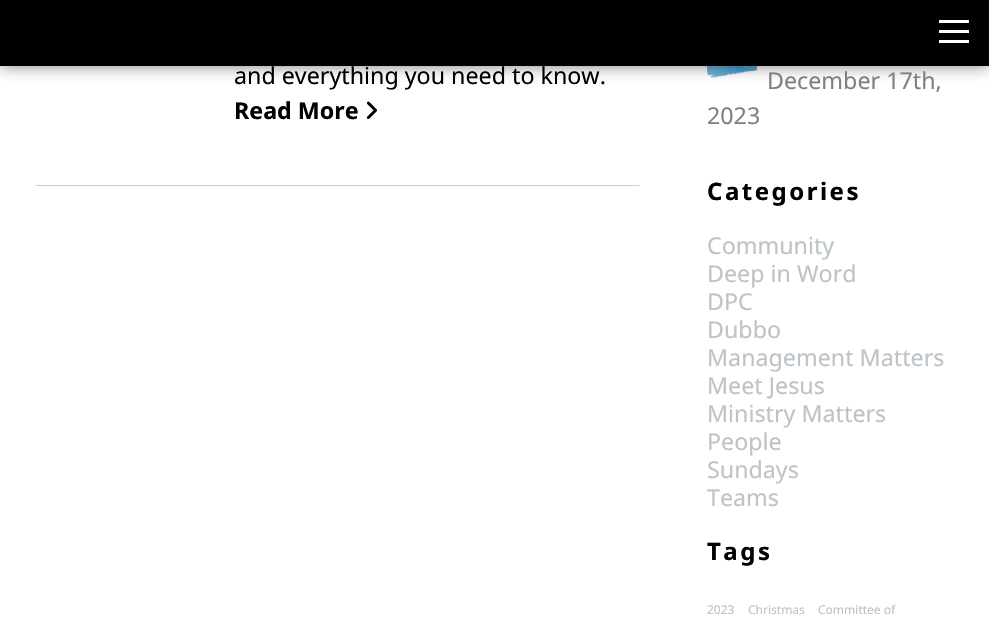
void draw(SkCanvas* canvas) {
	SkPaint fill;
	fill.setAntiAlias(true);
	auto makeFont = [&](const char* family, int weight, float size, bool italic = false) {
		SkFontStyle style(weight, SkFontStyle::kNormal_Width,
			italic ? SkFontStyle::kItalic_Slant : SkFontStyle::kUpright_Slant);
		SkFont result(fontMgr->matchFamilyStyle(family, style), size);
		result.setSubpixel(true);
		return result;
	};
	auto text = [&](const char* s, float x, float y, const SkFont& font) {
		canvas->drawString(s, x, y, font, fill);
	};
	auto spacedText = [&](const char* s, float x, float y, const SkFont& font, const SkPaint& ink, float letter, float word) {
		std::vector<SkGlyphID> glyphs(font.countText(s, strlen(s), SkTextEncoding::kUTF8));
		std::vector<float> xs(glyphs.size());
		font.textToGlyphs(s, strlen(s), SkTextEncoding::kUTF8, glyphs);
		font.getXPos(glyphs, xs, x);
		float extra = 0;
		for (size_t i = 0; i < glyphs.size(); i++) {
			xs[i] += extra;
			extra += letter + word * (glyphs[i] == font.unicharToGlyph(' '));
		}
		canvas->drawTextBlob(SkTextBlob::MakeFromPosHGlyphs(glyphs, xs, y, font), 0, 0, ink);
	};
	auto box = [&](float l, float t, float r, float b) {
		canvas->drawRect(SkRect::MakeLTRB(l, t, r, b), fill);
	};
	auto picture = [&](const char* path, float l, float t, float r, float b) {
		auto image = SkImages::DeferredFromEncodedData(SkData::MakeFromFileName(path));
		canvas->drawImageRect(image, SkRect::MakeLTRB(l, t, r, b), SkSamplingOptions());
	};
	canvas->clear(0xFFFFFFFF);
	picture("image1.png", 707, 66, 757, 78);
	fill.setColor(0x80000000);
	fill.setMaskFilter(SkMaskFilter::MakeBlur(kNormal_SkBlurStyle, 7.5f));
	canvas->drawRect(SkRect::MakeLTRB(0, 0, 989, 66), fill);
	fill.setMaskFilter(nullptr);
	fill.setColor(0xFF000000);
	box(0, 0, 989, 66);
	fill.setColor(0xFFFFFFFF);
	box(939, 20, 969, 23);
	box(939, 30, 969, 33);
	box(939, 40, 969, 43);
	picture("image0.png", 366, 101, 377, 119);
	fill.setColor(0xFFCCCCCC);
	canvas->drawPath(SkPathBuilder().moveTo(640, 186).lineTo(35, 186).lineTo(36, 185).lineTo(639, 185).close().detach(), fill);
	auto font1 = makeFont("Noto Sans", 400, 23.25f);
	fill.setColor(0xFF000000);
	text("and everything you need to know.", 234, 84, font1);
	auto font2 = makeFont("Noto Sans", 700, 23.25f);
	text("Read More", 234, 119, font2);
	fill.setColor(0xFF808080);
	text("December 17th,", 767, 89, font1);
	text("2023", 707, 124, font1);
	auto font3 = makeFont("Noto Sans", 700, 24);
	fill.setColor(0xFF000000);
	spacedText("Categories", 707, 200, font3, fill, 2.5f, 0);
	fill.setColor(0xFFBDC3C7);
	text("Community", 707, 254, font1);
	text("Deep in Word", 707, 282, font1);
	text("DPC", 707, 310, font1);
	text("Dubbo", 707, 338, font1);
	text("Management Matters", 707, 366, font1);
	text("Meet Jesus", 707, 394, font1);
	text("Ministry Matters", 707, 422, font1);
	text("People", 707, 450, font1);
	text("Sundays", 707, 478, font1);
	text("Teams", 707, 506, font1);
	fill.setColor(0xFF000000);
	spacedText("Tags", 707, 560, font3, fill, 2.5f, 0);
	auto font4 = makeFont("Noto Sans", 400, 12);
	fill.setColor(0xFFBDC3C7);
	text("2023", 707, 614, font4);
	text("Christmas", 748, 614, font4);
	text("Committee of", 818, 614, font4);
}
